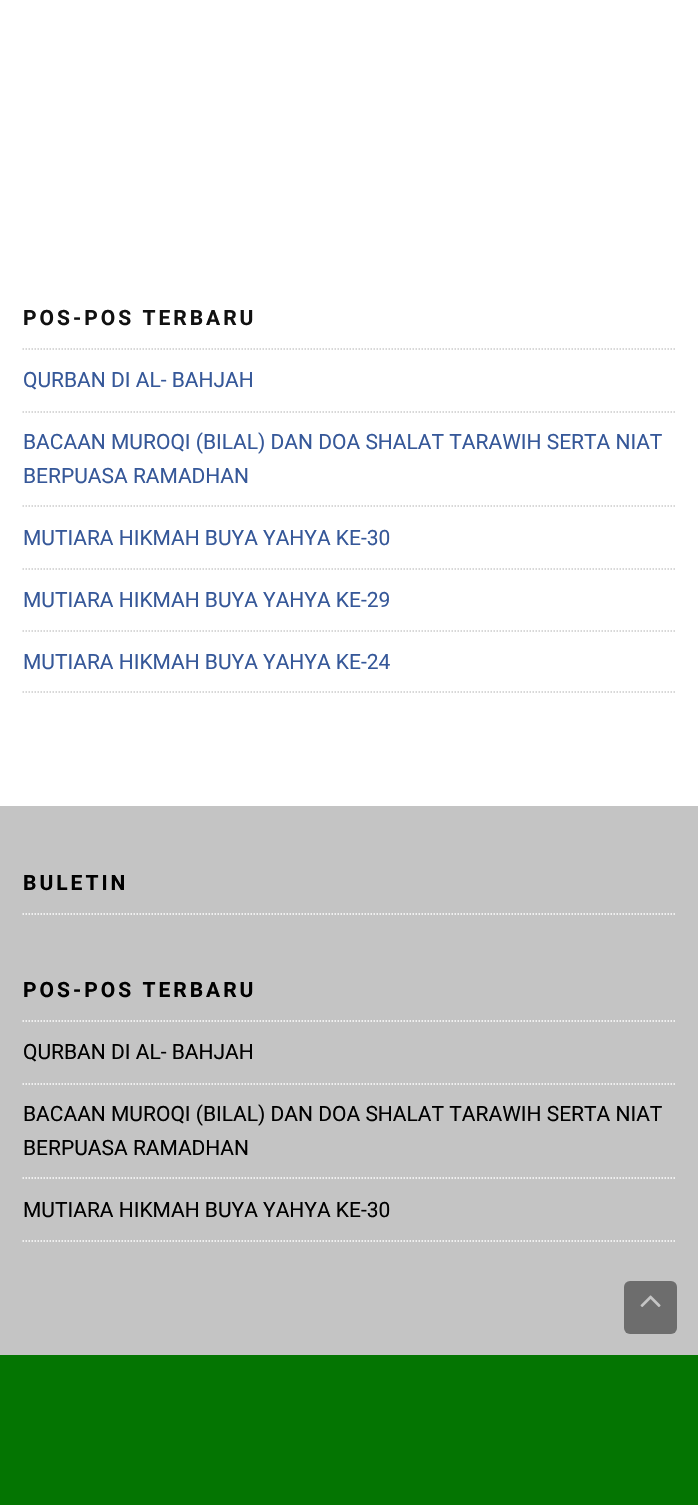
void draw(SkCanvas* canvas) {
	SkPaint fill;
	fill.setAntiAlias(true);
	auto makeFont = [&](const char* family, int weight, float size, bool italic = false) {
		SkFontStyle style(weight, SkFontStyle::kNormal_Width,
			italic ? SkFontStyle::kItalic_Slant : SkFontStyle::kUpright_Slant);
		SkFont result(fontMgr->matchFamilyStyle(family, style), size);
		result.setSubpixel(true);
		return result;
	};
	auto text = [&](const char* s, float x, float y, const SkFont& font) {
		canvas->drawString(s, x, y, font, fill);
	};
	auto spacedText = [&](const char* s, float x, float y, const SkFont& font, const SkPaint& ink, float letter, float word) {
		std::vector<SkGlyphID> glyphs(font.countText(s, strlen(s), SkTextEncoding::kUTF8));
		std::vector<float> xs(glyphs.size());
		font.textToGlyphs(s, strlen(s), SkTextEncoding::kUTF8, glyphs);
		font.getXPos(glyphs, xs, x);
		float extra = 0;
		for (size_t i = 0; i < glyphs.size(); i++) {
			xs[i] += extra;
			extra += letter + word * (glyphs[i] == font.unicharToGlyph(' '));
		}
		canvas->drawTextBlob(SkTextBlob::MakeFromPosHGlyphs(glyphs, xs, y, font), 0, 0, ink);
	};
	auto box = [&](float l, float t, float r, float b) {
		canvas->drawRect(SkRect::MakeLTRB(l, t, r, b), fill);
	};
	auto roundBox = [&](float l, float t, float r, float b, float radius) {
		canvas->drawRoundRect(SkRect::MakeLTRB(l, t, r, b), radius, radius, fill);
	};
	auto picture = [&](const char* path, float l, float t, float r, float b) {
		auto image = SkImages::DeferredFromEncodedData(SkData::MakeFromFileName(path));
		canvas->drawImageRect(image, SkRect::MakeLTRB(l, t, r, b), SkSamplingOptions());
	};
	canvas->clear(0xFFFFFFFF);
	fill.setStyle(SkPaint::kStroke_Style);
	fill.setStrokeWidth(1.5f);
	fill.setColor(0xFFCCCCCC);
	fill.setPathEffect(SkDashPathEffect::Make({{1.5f, 1.5f}}, 0));
	canvas->drawPath(SkPathBuilder().moveTo(22.5f, 349).lineTo(676.5f, 349).detach(), fill);
	fill.setPathEffect(nullptr);
	fill.setPathEffect(SkDashPathEffect::Make({{1.5f, 1.5f}}, 0));
	canvas->drawPath(SkPathBuilder().moveTo(22.5f, 412).lineTo(676.5f, 412).detach(), fill);
	fill.setPathEffect(nullptr);
	fill.setPathEffect(SkDashPathEffect::Make({{1.5f, 1.5f}}, 0));
	canvas->drawPath(SkPathBuilder().moveTo(22.5f, 506).lineTo(676.5f, 506).detach(), fill);
	fill.setPathEffect(nullptr);
	fill.setPathEffect(SkDashPathEffect::Make({{1.5f, 1.5f}}, 0));
	canvas->drawPath(SkPathBuilder().moveTo(22.5f, 569).lineTo(676.5f, 569).detach(), fill);
	fill.setPathEffect(nullptr);
	fill.setPathEffect(SkDashPathEffect::Make({{1.5f, 1.5f}}, 0));
	canvas->drawPath(SkPathBuilder().moveTo(22.5f, 631).lineTo(676.5f, 631).detach(), fill);
	fill.setPathEffect(nullptr);
	fill.setPathEffect(SkDashPathEffect::Make({{1.5f, 1.5f}}, 0));
	canvas->drawPath(SkPathBuilder().moveTo(22.5f, 692).lineTo(676.5f, 692).detach(), fill);
	fill.setPathEffect(nullptr);
	fill.setStyle(SkPaint::kFill_Style);
	fill.setColor(0xFFC4C4C4);
	box(0, 806, 698, 1355);
	fill.setStyle(SkPaint::kStroke_Style);
	fill.setColor(0xFFFFFFFF);
	fill.setPathEffect(SkDashPathEffect::Make({{1.5f, 1.5f}}, 0));
	canvas->drawPath(SkPathBuilder().moveTo(22.5f, 914).lineTo(676.5f, 914).detach(), fill);
	fill.setPathEffect(nullptr);
	fill.setPathEffect(SkDashPathEffect::Make({{1.5f, 1.5f}}, 0));
	canvas->drawPath(SkPathBuilder().moveTo(22.5f, 1021).lineTo(676.5f, 1021).detach(), fill);
	fill.setPathEffect(nullptr);
	fill.setPathEffect(SkDashPathEffect::Make({{1.5f, 1.5f}}, 0));
	canvas->drawPath(SkPathBuilder().moveTo(22.5f, 1084).lineTo(676.5f, 1084).detach(), fill);
	fill.setPathEffect(nullptr);
	fill.setPathEffect(SkDashPathEffect::Make({{1.5f, 1.5f}}, 0));
	canvas->drawPath(SkPathBuilder().moveTo(22.5f, 1178).lineTo(676.5f, 1178).detach(), fill);
	fill.setPathEffect(nullptr);
	fill.setPathEffect(SkDashPathEffect::Make({{1.5f, 1.5f}}, 0));
	canvas->drawPath(SkPathBuilder().moveTo(22.5f, 1241).lineTo(676.5f, 1241).detach(), fill);
	fill.setPathEffect(nullptr);
	fill.setStyle(SkPaint::kFill_Style);
	fill.setColor(0xFF047502);
	box(0, 1355, 698, 1505);
	fill.setColor(0xFF6D6D6D);
	roundBox(624, 1281, 677, 1334, 6);
	picture("image0.png", 640, 1295, 661, 1307);
	auto font1 = makeFont("Roboto", 700, 21);
	fill.setColor(0xFF111111);
	spacedText("POS-POS TERBARU", 23, 325, font1, fill, 3, 0);
	auto font2 = makeFont("Roboto", 400, 21);
	fill.setColor(0xFF365899);
	text("QURBAN DI AL- BAHJAH", 23, 387, font2);
	text("BACAAN MUROQI (BILAL) DAN DOA SHALAT TARAWIH SERTA NIAT", 23, 449, font2);
	text("BERPUASA RAMADHAN", 23, 483, font2);
	text("MUTIARA HIKMAH BUYA YAHYA KE-30", 23, 545, font2);
	text("MUTIARA HIKMAH BUYA YAHYA KE-29", 23, 607, font2);
	text("MUTIARA HIKMAH BUYA YAHYA KE-24", 23, 669, font2);
	fill.setColor(0xFF000000);
	spacedText("BULETIN", 23, 890, font1, fill, 3, 0);
	spacedText("POS-POS TERBARU", 23, 997, font1, fill, 3, 0);
	text("QURBAN DI AL- BAHJAH", 23, 1059, font2);
	text("BACAAN MUROQI (BILAL) DAN DOA SHALAT TARAWIH SERTA NIAT", 23, 1121, font2);
	text("BERPUASA RAMADHAN", 23, 1155, font2);
	text("MUTIARA HIKMAH BUYA YAHYA KE-30", 23, 1217, font2);
}
